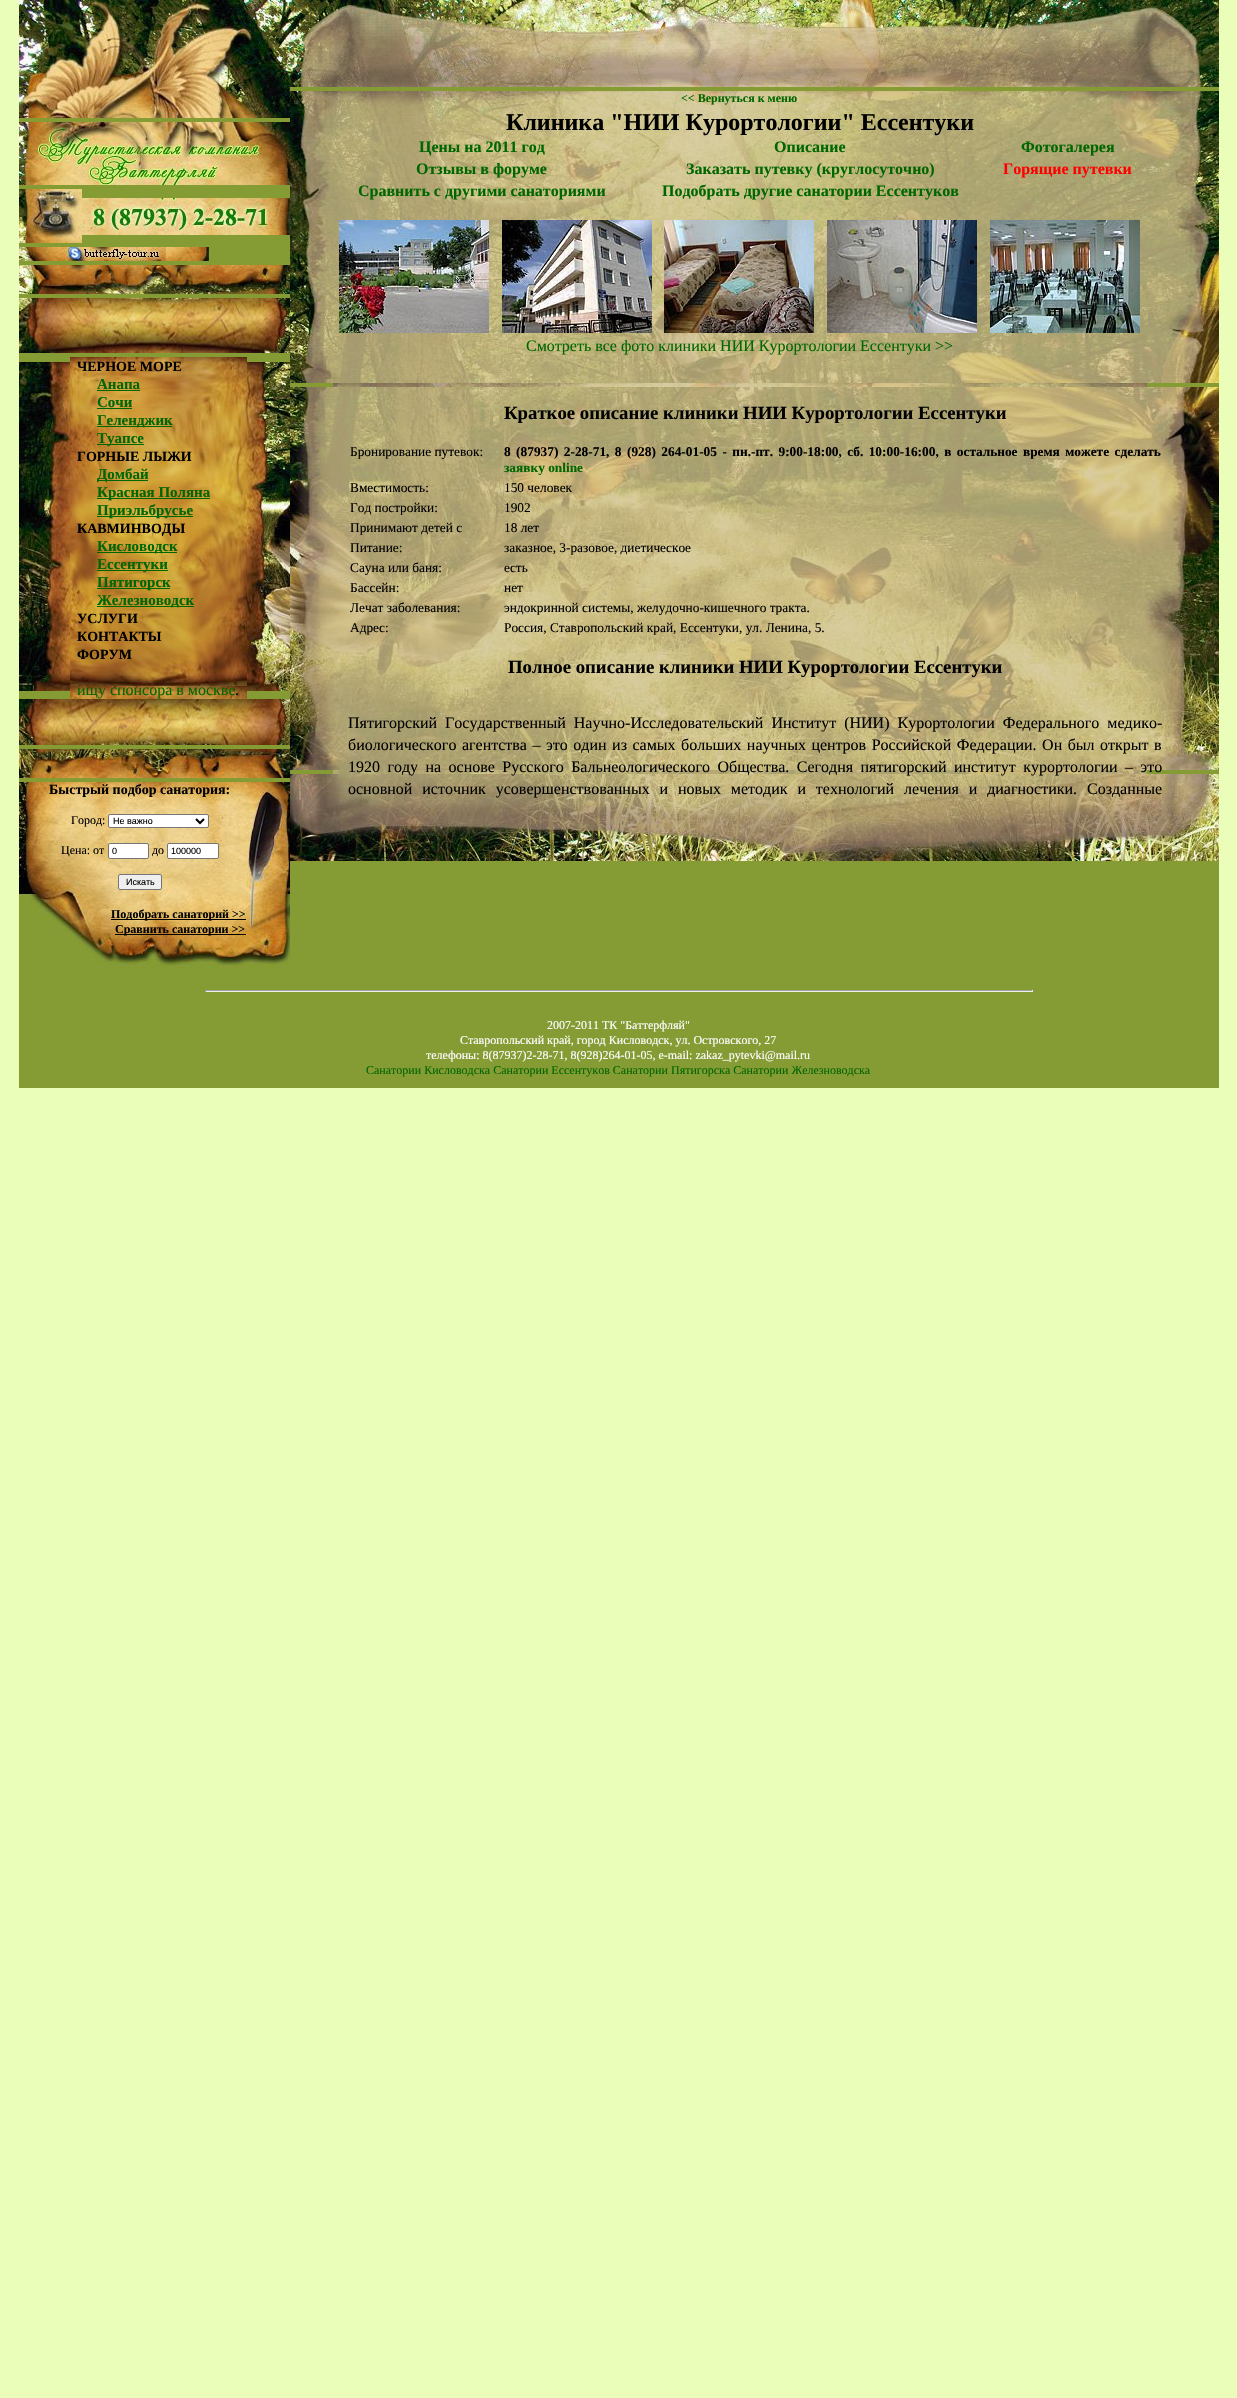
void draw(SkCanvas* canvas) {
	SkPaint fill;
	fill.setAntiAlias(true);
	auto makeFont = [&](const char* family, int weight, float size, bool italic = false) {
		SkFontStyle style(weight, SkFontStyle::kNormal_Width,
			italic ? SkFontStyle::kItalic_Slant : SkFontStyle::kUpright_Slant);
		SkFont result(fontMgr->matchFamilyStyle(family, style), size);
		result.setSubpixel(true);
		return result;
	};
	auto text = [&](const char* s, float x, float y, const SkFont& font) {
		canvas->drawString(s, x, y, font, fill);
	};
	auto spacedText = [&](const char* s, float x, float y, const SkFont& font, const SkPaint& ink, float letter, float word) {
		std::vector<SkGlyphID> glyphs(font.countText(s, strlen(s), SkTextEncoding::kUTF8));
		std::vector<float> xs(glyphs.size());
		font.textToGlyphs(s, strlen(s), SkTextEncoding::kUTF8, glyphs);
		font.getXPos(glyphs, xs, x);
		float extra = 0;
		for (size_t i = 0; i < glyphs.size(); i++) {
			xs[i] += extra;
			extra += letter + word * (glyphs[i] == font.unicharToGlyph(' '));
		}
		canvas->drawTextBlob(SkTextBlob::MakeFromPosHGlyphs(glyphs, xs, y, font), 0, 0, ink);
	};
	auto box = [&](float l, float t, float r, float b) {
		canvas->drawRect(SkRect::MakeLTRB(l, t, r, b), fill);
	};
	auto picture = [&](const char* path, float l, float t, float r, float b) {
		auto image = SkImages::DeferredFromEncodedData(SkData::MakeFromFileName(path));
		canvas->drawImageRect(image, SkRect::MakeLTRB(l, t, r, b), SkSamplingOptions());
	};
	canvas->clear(0xFFEAFEBA);
	fill.setColor(0xFF859B34);
	box(19, 118, 290, 974);
	picture("image0.png", 19, 0, 290, 118);
	picture("image1.png", 19, 122, 290, 185);
	picture("image2.png", 19, 189, 26, 243);
	picture("image3.png", 26, 189, 82, 243);
	picture("image4.png", 82, 198, 290, 235);
	picture("image5.png", 19, 247, 63, 261);
	picture("image6.png", 63, 247, 166, 261);
	picture("image7.png", 166, 247, 209, 261);
	picture("image8.png", 19, 265, 290, 294);
	picture("image9.png", 19, 298, 290, 353);
	picture("image10.png", 19, 362, 70, 691);
	picture("image11.png", 70, 357, 247, 699);
	fill.setColor(0xFF006600);
	box(97, 390, 140, 391);
	box(97, 408, 132, 409);
	box(97, 426, 172, 427);
	box(97, 444, 144, 445);
	box(97, 480, 148, 481);
	box(97, 498, 210, 499);
	box(97, 516, 193, 517);
	box(97, 552, 177, 553);
	box(97, 570, 168, 571);
	box(97, 588, 170, 589);
	box(97, 606, 194, 607);
	picture("image12.png", 247, 362, 290, 691);
	picture("image13.png", 19, 699, 290, 745);
	picture("image14.png", 19, 749, 290, 778);
	picture("image15.png", 19, 782, 35, 902);
	picture("image16.png", 35, 782, 246, 937);
	fill.setColor(0xFFFFFFFF);
	canvas->drawRoundRect(SkRect::MakeLTRB(108.5f, 814.5f, 208.5f, 827.5f), 1.5f, 1.5f, fill);
	fill.setStyle(SkPaint::kStroke_Style);
	fill.setStrokeWidth(1);
	fill.setColor(0xFF767676);
	canvas->drawRoundRect(SkRect::MakeLTRB(108.5f, 814.5f, 208.5f, 827.5f), 1.5f, 1.5f, fill);
	fill.setStrokeWidth(2);
	fill.setColor(0xFF000000);
	canvas->drawPath(SkPathBuilder().moveTo(196, 819).lineTo(200, 823).lineTo(204, 819).detach(), fill);
	fill.setStyle(SkPaint::kFill_Style);
	fill.setColor(0xFFFFFFFF);
	canvas->drawRoundRect(SkRect::MakeLTRB(108.5f, 843.5f, 148.5f, 858.5f), 1.5f, 1.5f, fill);
	fill.setStyle(SkPaint::kStroke_Style);
	fill.setStrokeWidth(1);
	fill.setColor(0xFF767676);
	canvas->drawRoundRect(SkRect::MakeLTRB(108.5f, 843.5f, 148.5f, 858.5f), 1.5f, 1.5f, fill);
	fill.setStyle(SkPaint::kFill_Style);
	fill.setColor(0xFFFFFFFF);
	canvas->drawRoundRect(SkRect::MakeLTRB(167.5f, 843.5f, 218.5f, 858.5f), 1.5f, 1.5f, fill);
	fill.setStyle(SkPaint::kStroke_Style);
	fill.setColor(0xFF767676);
	canvas->drawRoundRect(SkRect::MakeLTRB(167.5f, 843.5f, 218.5f, 858.5f), 1.5f, 1.5f, fill);
	fill.setStyle(SkPaint::kFill_Style);
	fill.setColor(0xFFEFEFEF);
	canvas->drawRoundRect(SkRect::MakeLTRB(118.5f, 874.5f, 161.5f, 889.5f), 1.5f, 1.5f, fill);
	fill.setStyle(SkPaint::kStroke_Style);
	fill.setColor(0xFF767676);
	canvas->drawRoundRect(SkRect::MakeLTRB(118.5f, 874.5f, 161.5f, 889.5f), 1.5f, 1.5f, fill);
	fill.setStyle(SkPaint::kFill_Style);
	fill.setColor(0xFF000000);
	box(111, 919, 246, 920);
	box(115, 934, 246, 935);
	picture("image17.png", 246, 782, 290, 966);
	picture("image18.png", 75, 937, 246, 969);
	fill.setColor(0xFF859B34);
	box(290, 87, 1219, 974);
	picture("image19.png", 290, 0, 1219, 87);
	picture("image20.png", 290, 91, 333, 383);
	picture("image21.png", 333, 91, 1147, 387);
	picture("image22.png", 339, 220, 489, 333);
	picture("image23.png", 502, 220, 652, 333);
	picture("image24.png", 664, 220, 814, 333);
	picture("image25.png", 827, 220, 977, 333);
	picture("image26.png", 990, 220, 1140, 333);
	picture("image27.png", 1147, 91, 1219, 383);
	picture("image28.png", 290, 387, 333, 770);
	picture("image29.png", 333, 387, 1147, 774);
	picture("image30.png", 1147, 387, 1219, 770);
	picture("image31.png", 290, 774, 1219, 861);
	box(19, 974, 1219, 1088);
	fill.setColor(0xFF9F9F9F);
	box(205, 990, 1033, 991);
	fill.setColor(0xFFEEEEEE);
	box(1032, 990, 1033, 992);
	box(205, 991, 1033, 992);
	fill.setColor(0xFF9F9F9F);
	box(205, 990, 206, 992);
	auto font1 = makeFont("Liberation Serif", 700, 14);
	fill.setColor(0xFF000000);
	text("ЧЕРНОЕ МОРЕ", 77, 371, font1);
	auto font2 = makeFont("Liberation Serif", 700, 15);
	fill.setColor(0xFF006600);
	text("Анапа", 97, 389, font2);
	text("Сочи", 97, 407, font2);
	text("Геленджик", 97, 425, font2);
	text("Туапсе", 97, 443, font2);
	fill.setColor(0xFF000000);
	text("ГОРНЫЕ ЛЫЖИ", 77, 461, font1);
	fill.setColor(0xFF006600);
	text("Домбай", 97, 479, font2);
	text("Красная Поляна", 97, 497, font2);
	text("Приэльбрусье", 97, 515, font2);
	fill.setColor(0xFF000000);
	text("КАВМИНВОДЫ", 77, 533, font1);
	fill.setColor(0xFF006600);
	text("Кисловодск", 97, 551, font2);
	text("Ессентуки", 97, 569, font2);
	text("Пятигорск", 97, 587, font2);
	text("Железноводск", 97, 605, font2);
	fill.setColor(0xFF000000);
	text("УСЛУГИ", 77, 623, font1);
	text("КОНТАКТЫ", 77, 641, font1);
	text("ФОРУМ", 77, 659, font1);
	auto font3 = makeFont("Liberation Serif", 400, 16);
	fill.setColor(0xFF006600);
	text("ищу спонсора в москве", 77, 695, font3);
	fill.setColor(0xFF000000);
	text(".", 235, 695, font3);
	text("Быстрый подбор санатория:", 49, 794, font1);
	auto font4 = makeFont("Liberation Serif", 400, 12);
	text("Город:", 71, 824, font4);
	auto font5 = makeFont("Liberation Sans", 400, 9);
	text("Не важно", 113, 824, font5);
	text("Цена: от", 61, 854, font4);
	text("0", 112, 854, font5);
	text("до", 152, 854, font4);
	text("100000", 171, 854, font5);
	text("Искать", 126, 885, font5);
	auto font6 = makeFont("Liberation Serif", 700, 12);
	text("Подобрать санаторий >>", 111, 918, font6);
	text("Сравнить санатории >>", 115, 933, font6);
	fill.setColor(0xFF006600);
	text("<< Вернуться к меню", 681, 102, font6);
	auto font7 = makeFont("Liberation Serif", 700, 24);
	fill.setColor(0xFF000000);
	text("Клиника \"НИИ Курортологии\" Ессентуки", 506, 130, font7);
	auto font8 = makeFont("Liberation Serif", 700, 16);
	fill.setColor(0xFF006600);
	text("Цены на 2011 год", 419, 152, font8);
	text("Описание", 774, 152, font8);
	text("Фотогалерея", 1021, 152, font8);
	text("Отзывы в форуме", 416, 174, font8);
	text("Заказать путевку (круглосуточно)", 686, 174, font8);
	fill.setColor(0xFFFF0000);
	text("Горящие путевки", 1003, 174, font8);
	fill.setColor(0xFF006600);
	text("Сравнить с другими санаториями", 358, 196, font8);
	text("Подобрать другие санатории Ессентуков", 662, 196, font8);
	text("Смотреть все фото клиники НИИ Курортологии Ессентуки >>", 526, 351, font3);
	auto font9 = makeFont("Liberation Serif", 700, 18.75f);
	fill.setColor(0xFF000000);
	text("Краткое описание клиники НИИ Курортологии Ессентуки", 504, 419, font9);
	auto font10 = makeFont("Liberation Serif", 400, 13.35f);
	text("Бронирование путевок:", 350, 456, font10);
	auto font11 = makeFont("Liberation Serif", 700, 13.35f);
	spacedText("8 (87937) 2-28-71, 8 (928) 264-01-05 - пн.-пт. 9:00-18:00, сб. 10:00-16:00, в остальное время можете сделать", 504, 456, font11, fill, 0, 2.1f);
	fill.setColor(0xFF006600);
	text("заявку online", 504, 472, font11);
	fill.setColor(0xFF000000);
	text("Вместимость:", 350, 492, font10);
	text("150 человек", 504, 492, font10);
	text("Год постройки:", 350, 512, font10);
	text("1902", 504, 512, font10);
	text("Принимают детей с", 350, 532, font10);
	text("18 лет", 504, 532, font10);
	text("Питание:", 350, 552, font10);
	text("заказное, 3-разовое, диетическое", 504, 552, font10);
	text("Сауна или баня:", 350, 572, font10);
	text("есть", 504, 572, font10);
	text("Бассейн:", 350, 592, font10);
	text("нет", 504, 592, font10);
	text("Лечат заболевания:", 350, 612, font10);
	text("эндокринной системы, желудочно-кишечного тракта.", 504, 612, font10);
	text("Адрес:", 350, 632, font10);
	text("Россия, Ставропольский край, Ессентуки, ул. Ленина, 5.", 504, 632, font10);
	text("Полное описание клиники НИИ Курортологии Ессентуки", 508, 673, font9);
	spacedText("Пятигорский Государственный Научно-Исследовательский Институт (НИИ) Курортологии Федерального медико-", 348, 728, font3, fill, 0, 4);
	spacedText("биологического агентства – это один из самых больших научных центров Российской Федерации. Он был открыт в", 348, 750, font3, fill, 0, 1.5f);
	spacedText("1920 году на основе Русского Бальнеологического Общества. Сегодня пятигорский институт курортологии – это", 348, 772, font3, fill, 0, 3.4f);
	spacedText("основной источник усовершенствованных и новых методик и технологий лечения и диагностики. Созданные", 348, 794, font3, fill, 0, 5.9f);
	fill.setColor(0xFFFFFFFF);
	text("2007-2011 ТК \"Баттерфляй\"", 547, 1029, font4);
	text("Ставропольский край, город Кисловодск, ул. Островского, 27", 460, 1044, font4);
	text("телефоны: 8(87937)2-28-71, 8(928)264-01-05, e-mail: zakaz_pytevki@mail.ru", 426, 1059, font4);
	fill.setColor(0xFF006600);
	text("Санатории Кисловодска Санатории Ессентуков Санатории Пятигорска Санатории Железноводска", 366, 1074, font4);
}
